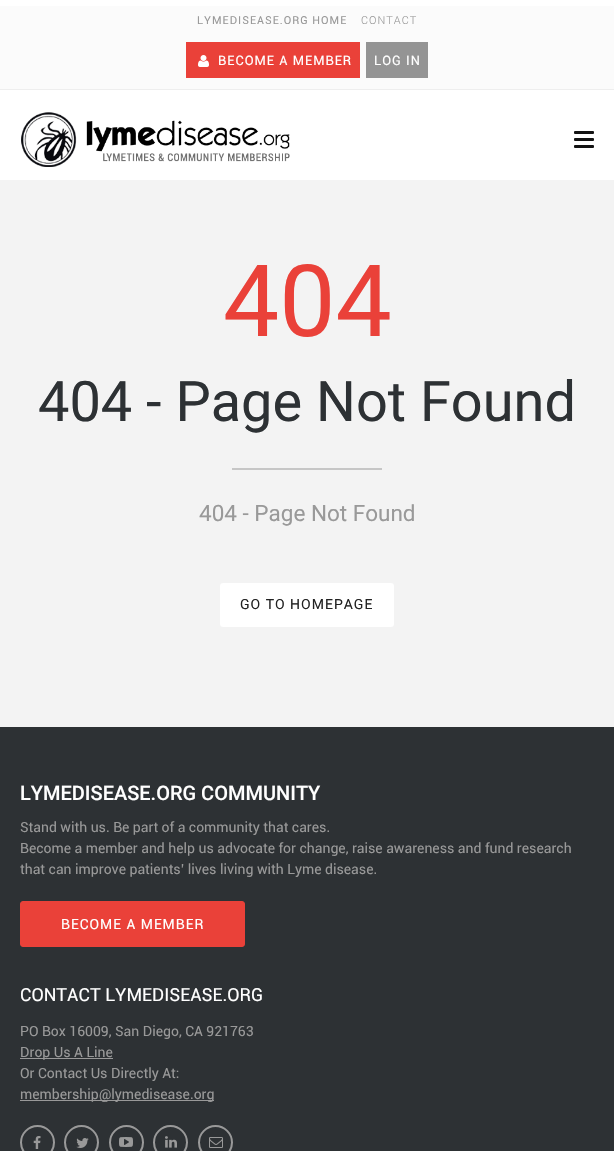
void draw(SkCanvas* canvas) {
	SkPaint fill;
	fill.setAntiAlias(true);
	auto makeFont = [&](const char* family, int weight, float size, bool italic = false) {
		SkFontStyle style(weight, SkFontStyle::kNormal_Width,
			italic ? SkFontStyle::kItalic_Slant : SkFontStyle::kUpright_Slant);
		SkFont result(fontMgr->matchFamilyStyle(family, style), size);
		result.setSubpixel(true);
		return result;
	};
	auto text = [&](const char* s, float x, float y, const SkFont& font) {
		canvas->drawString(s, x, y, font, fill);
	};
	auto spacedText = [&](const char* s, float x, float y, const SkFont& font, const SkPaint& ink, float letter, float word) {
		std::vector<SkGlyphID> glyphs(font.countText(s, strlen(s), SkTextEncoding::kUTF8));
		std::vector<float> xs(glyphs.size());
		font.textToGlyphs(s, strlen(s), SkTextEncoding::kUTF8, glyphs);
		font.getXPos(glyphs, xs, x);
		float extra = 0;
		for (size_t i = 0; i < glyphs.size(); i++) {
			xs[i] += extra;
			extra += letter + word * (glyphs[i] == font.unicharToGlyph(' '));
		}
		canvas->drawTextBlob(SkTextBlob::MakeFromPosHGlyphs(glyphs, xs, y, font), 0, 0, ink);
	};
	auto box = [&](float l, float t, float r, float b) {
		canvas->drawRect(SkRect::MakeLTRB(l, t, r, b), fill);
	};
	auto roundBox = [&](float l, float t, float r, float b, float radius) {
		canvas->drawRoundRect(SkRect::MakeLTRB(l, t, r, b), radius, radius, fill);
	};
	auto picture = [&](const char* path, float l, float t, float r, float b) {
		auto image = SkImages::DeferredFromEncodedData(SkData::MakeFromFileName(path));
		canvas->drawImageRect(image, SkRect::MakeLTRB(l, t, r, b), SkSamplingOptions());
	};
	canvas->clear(0xFFFFFFFF);
	fill.setColor(0xFFFBFBFB);
	box(0, 6, 614, 89);
	fill.setColor(0xFFEEEEEE);
	box(0, 89, 614, 90);
	fill.setColor(0xFFEA4139);
	box(186, 42, 360, 78);
	picture("image0.png", 198, 55, 209, 67);
	fill.setColor(0xFF949494);
	box(366, 42, 428, 78);
	picture("image1.png", 21, 112, 290, 167);
	fill.setColor(0xFF131313);
	roundBox(574, 131, 594, 134, 1);
	roundBox(574, 138, 594, 141, 1);
	roundBox(574, 145, 594, 148, 1);
	fill.setColor(0xFFF3F3F3);
	box(0, 180, 614, 727);
	fill.setColor(0xFFC6C6C6);
	box(232, 468, 382, 470);
	fill.setColor(0xFFFFFFFF);
	roundBox(220, 583, 394, 627, 3);
	fill.setColor(0xFF2D3134);
	box(0, 727, 614, 1151);
	fill.setColor(0xFFEA4139);
	canvas->drawRoundRect(SkRect::MakeLTRB(20.5f, 901.5f, 244.5f, 946.5f), 2.5f, 2.5f, fill);
	fill.setStyle(SkPaint::kStroke_Style);
	fill.setStrokeWidth(1);
	canvas->drawRoundRect(SkRect::MakeLTRB(20.5f, 901.5f, 244.5f, 946.5f), 2.5f, 2.5f, fill);
	fill.setStyle(SkPaint::kFill_Style);
	fill.setColor(0xFF999999);
	box(20, 1058, 113, 1059);
	box(20, 1100, 214, 1101);
	fill.setStyle(SkPaint::kStroke_Style);
	fill.setStrokeWidth(2);
	canvas->drawCircle(37.5f, 1142.5f, 16.5f, fill);
	picture("image2.png", 33, 1136, 41, 1149);
	canvas->drawCircle(81.5f, 1142.5f, 16.5f, fill);
	picture("image3.png", 76, 1138, 89, 1148);
	canvas->drawCircle(126.5f, 1142.5f, 16.5f, fill);
	picture("image4.png", 119, 1137, 133, 1147);
	canvas->drawCircle(170.5f, 1142.5f, 16.5f, fill);
	picture("image5.png", 165, 1136, 177, 1148);
	canvas->drawCircle(215.5f, 1142.5f, 16.5f, fill);
	picture("image6.png", 209, 1137, 223, 1148);
	auto font1 = makeFont("Roboto", 400, 11);
	fill.setStyle(SkPaint::kFill_Style);
	spacedText("LYMEDISEASE.ORG HOME", 197, 24, font1, fill, 1, 0);
	auto font2 = makeFont("Roboto", 300, 11);
	spacedText("CONTACT", 361, 24, font2, fill, 1, 0);
	auto font3 = makeFont("Roboto", 400, 13);
	fill.setColor(0xFFFFFFFF);
	spacedText("BECOME A MEMBER", 218, 65, font3, fill, 1, 0);
	spacedText("LOG IN", 374, 65, font3, fill, 1, 0);
	auto font4 = makeFont("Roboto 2", 400, 100);
	fill.setColor(0xFFEA4139);
	text("404", 223, 336, font4);
	auto font5 = makeFont("Roboto 2", 400, 55.9f);
	fill.setColor(0xFF2D3134);
	text("404 - Page Not Found", 38, 421, font5);
	auto font6 = makeFont("Roboto 2", 400, 22.5f);
	fill.setColor(0xFF999999);
	text("404 - Page Not Found", 199, 521, font6);
	auto font7 = makeFont("Roboto 2", 400, 14);
	fill.setColor(0xFF222222);
	spacedText("GO TO HOMEPAGE", 240, 609, font7, fill, 1, 0);
	auto font8 = makeFont("Roboto", 500, 20);
	fill.setColor(0xFFFFFFFF);
	text("LYMEDISEASE.ORG COMMUNITY", 20, 800, font8);
	auto font9 = makeFont("Roboto", 400, 14);
	fill.setColor(0xFF999999);
	text("Stand with us. Be part of a community that cares.", 20, 832, font9);
	text("Become a member and help us advocate for change, raise awareness and fund research", 20, 853, font9);
	text("that can improve patients’ lives living with Lyme disease.", 20, 874, font9);
	fill.setColor(0xFFFFFFFF);
	spacedText("BECOME A MEMBER", 61, 929, font9, fill, 1, 0);
	auto font10 = makeFont("Roboto", 400, 18);
	text("CONTACT LYMEDISEASE.ORG", 20, 1001, font10);
	fill.setColor(0xFF999999);
	text("PO Box 16009, San Diego, CA 921763", 20, 1036, font9);
	text("Drop Us A Line", 20, 1057, font9);
	text("Or Contact Us Directly At:", 20, 1078, font9);
	text("membership@lymedisease.org", 20, 1099, font9);
}
